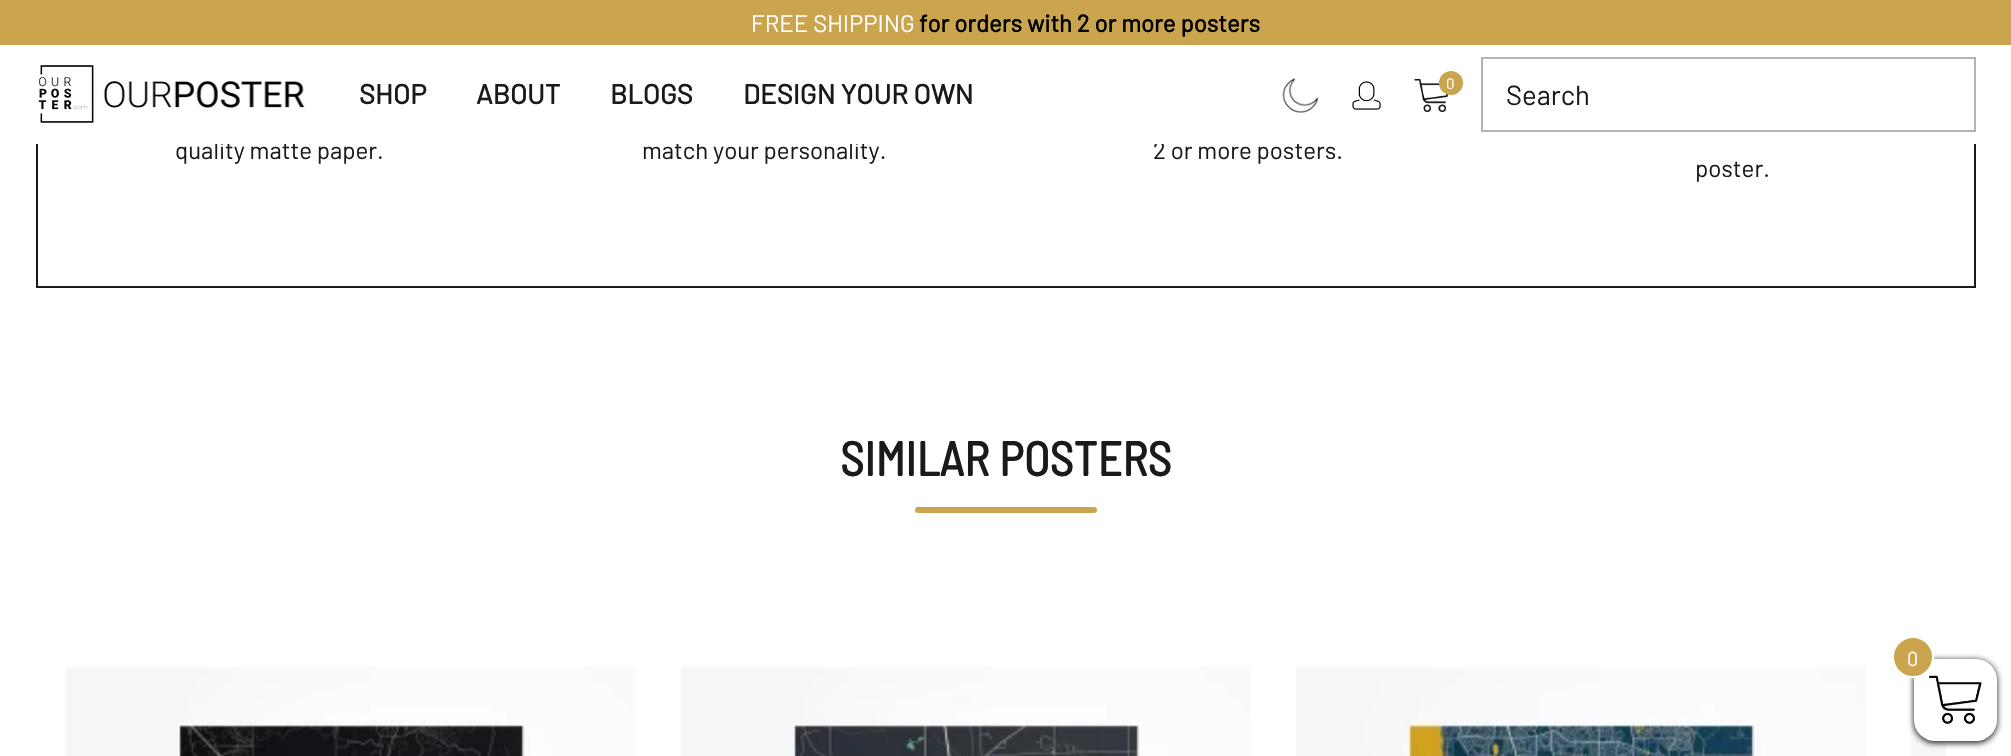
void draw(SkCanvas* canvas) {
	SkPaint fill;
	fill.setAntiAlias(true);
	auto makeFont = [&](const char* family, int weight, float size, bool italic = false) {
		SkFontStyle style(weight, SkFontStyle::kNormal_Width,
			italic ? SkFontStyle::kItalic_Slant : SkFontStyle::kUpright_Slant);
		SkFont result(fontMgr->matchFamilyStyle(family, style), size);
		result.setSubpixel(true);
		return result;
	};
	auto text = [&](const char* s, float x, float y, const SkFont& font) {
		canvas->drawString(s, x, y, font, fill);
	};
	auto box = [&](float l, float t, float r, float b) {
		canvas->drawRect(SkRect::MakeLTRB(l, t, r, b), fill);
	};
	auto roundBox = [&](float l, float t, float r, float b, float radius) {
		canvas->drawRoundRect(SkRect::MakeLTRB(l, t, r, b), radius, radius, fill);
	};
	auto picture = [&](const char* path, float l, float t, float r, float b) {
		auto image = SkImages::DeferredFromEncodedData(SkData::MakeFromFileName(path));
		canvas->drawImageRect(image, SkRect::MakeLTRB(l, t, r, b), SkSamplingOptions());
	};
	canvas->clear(0xFFFFFFFF);
	fill.setStyle(SkPaint::kStroke_Style);
	fill.setStrokeWidth(2);
	fill.setColor(0xFF1A1A1A);
	canvas->drawRect(SkRect::MakeLTRB(37, -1, 1975, 287), fill);
	fill.setStyle(SkPaint::kFill_Style);
	fill.setColor(0xFFCBA54D);
	box(0, 0, 2011, 45);
	roundBox(915, 507, 1097, 513, 3);
	picture("image4.png", 66, 667, 636, 756);
	picture("image5.png", 681, 667, 1251, 756);
	picture("image6.png", 1296, 667, 1866, 756);
	fill.setColor(0xFFF6F6F6);
	box(1911, 677, 1946, 756);
	fill.setColor(0xFF1A1A1A);
	fill.setMaskFilter(SkMaskFilter::MakeBlur(kNormal_SkBlurStyle, 3));
	canvas->drawRoundRect(SkRect::MakeLTRB(1914, 660, 1997, 743), 21, 21, fill);
	fill.setMaskFilter(nullptr);
	fill.setColor(0xFFFFFFFF);
	roundBox(1914, 659, 1997, 741, 21);
	picture("image7.png", 1929, 675, 1982, 724);
	fill.setColor(0xFFCBA54D);
	canvas->drawCircle(1913, 657, 20, fill);
	fill.setStyle(SkPaint::kStroke_Style);
	fill.setColor(0xFFFFFFFF);
	canvas->drawCircle(1913, 657, 20, fill);
	auto font1 = makeFont("Barlow", 400, 24);
	fill.setStyle(SkPaint::kFill_Style);
	text("FREE SHIPPING", 751, 32, font1);
	auto font2 = makeFont("Barlow", 700, 24);
	fill.setColor(0xFF000000);
	text("for orders with 2 or more posters", 919, 32, font2);
	fill.setColor(0xFF1A1A1A);
	text("quality matte paper.", 175, 159, font1);
	text("match your personality.", 642, 159, font1);
	text("2 or more posters.", 1153, 159, font1);
	fill.setColor(0xFFFFFFFF);
	box(36, 45, 1976, 144);
	fill.setStyle(SkPaint::kStroke_Style);
	fill.setColor(0xFFB3B3B3);
	canvas->drawRect(SkRect::MakeLTRB(1482, 58, 1975, 131), fill);
	auto font3 = makeFont("Barlow", 400, 27.5f);
	fill.setStyle(SkPaint::kFill_Style);
	fill.setColor(0xFF1A1A1A);
	text("Search", 1506, 105, font3);
	picture("image3.png", 1414, 79, 1449, 112);
	fill.setColor(0xFFCBA54D);
	canvas->drawCircle(1451, 83, 12, fill);
	auto font4 = makeFont("Barlow", 400, 15);
	fill.setColor(0xFFFFFFFF);
	text("0", 1446, 89, font4);
	picture("image2.png", 1352, 81, 1381, 110);
	auto font5 = makeFont("Barlow", 700, 27.5f);
	fill.setColor(0xFF1A1A1A);
	text("DESIGN YOUR OWN", 743, 104, font5);
	text("BLOGS", 610, 104, font5);
	text("ABOUT", 476, 104, font5);
	text("SHOP", 359, 104, font5);
	picture("image1.png", 1282, 78, 1319, 113);
	picture("image0.png", 38, 65, 305, 123);
	text("poster.", 1695, 177, font1);
	auto font6 = makeFont("Barlow Semi Condensed", 700, 48);
	text("SIMILAR POSTERS", 840, 476, font6);
	auto font7 = makeFont("Barlow", 400, 20);
	fill.setColor(0xFFFFFFFF);
	text("0", 1907, 666, font7);
}
